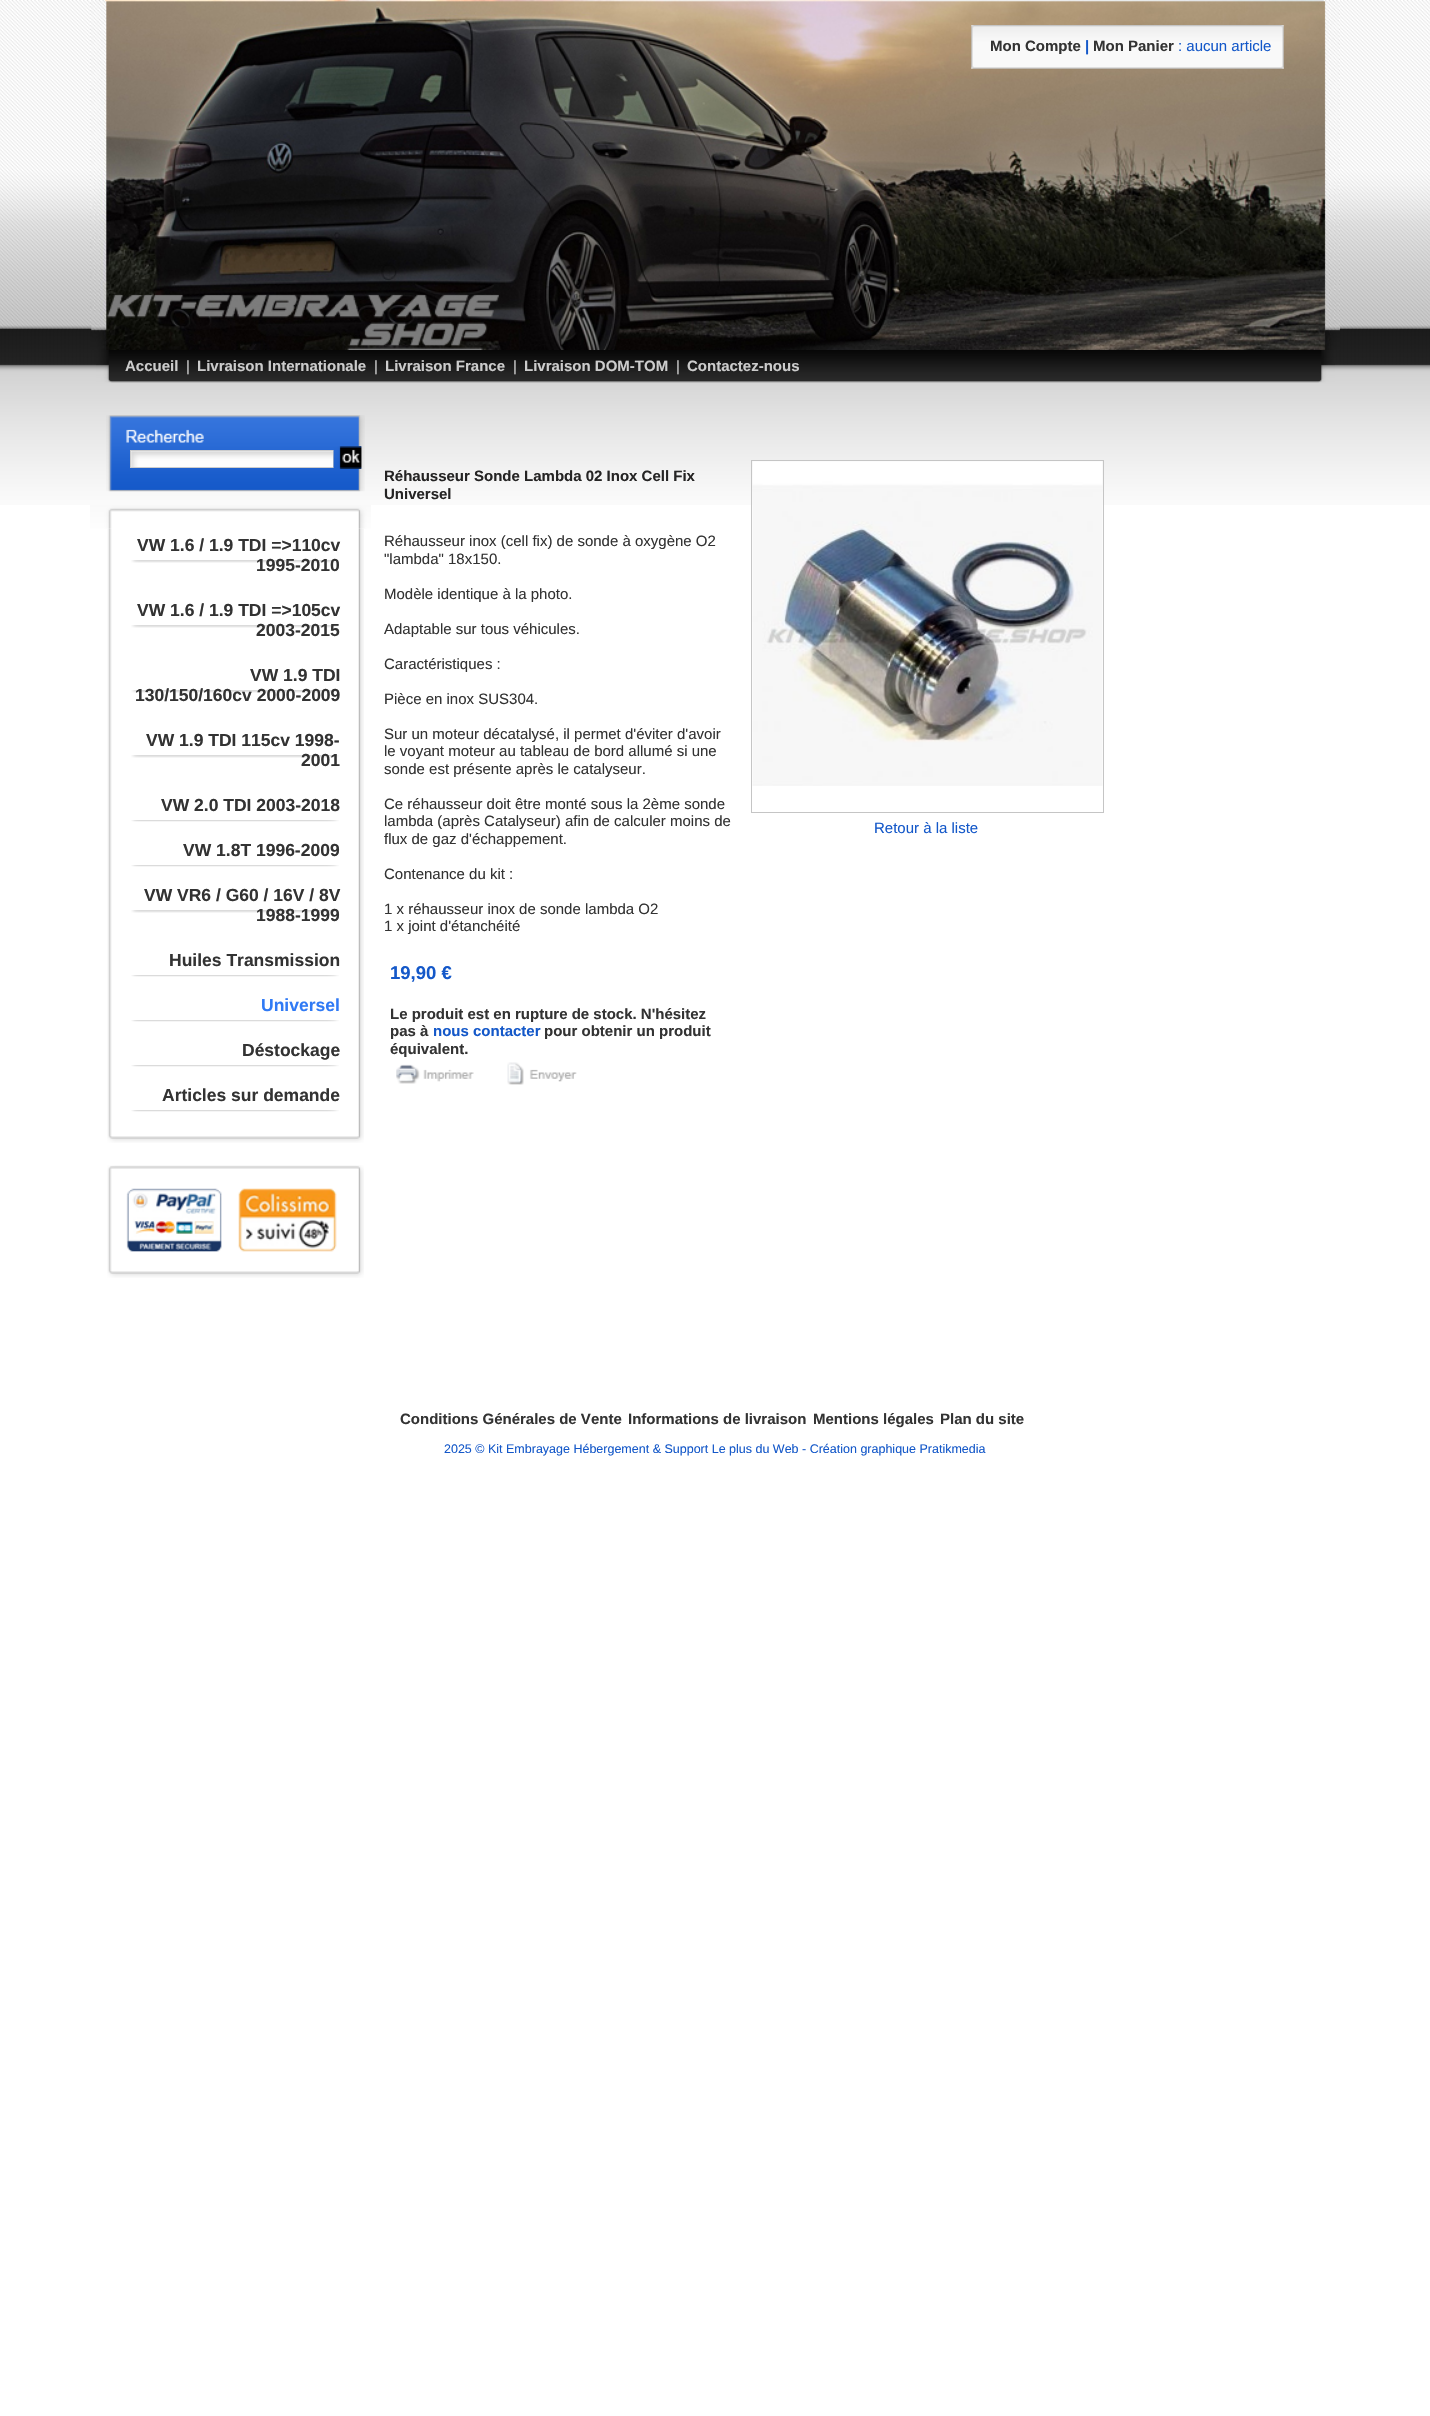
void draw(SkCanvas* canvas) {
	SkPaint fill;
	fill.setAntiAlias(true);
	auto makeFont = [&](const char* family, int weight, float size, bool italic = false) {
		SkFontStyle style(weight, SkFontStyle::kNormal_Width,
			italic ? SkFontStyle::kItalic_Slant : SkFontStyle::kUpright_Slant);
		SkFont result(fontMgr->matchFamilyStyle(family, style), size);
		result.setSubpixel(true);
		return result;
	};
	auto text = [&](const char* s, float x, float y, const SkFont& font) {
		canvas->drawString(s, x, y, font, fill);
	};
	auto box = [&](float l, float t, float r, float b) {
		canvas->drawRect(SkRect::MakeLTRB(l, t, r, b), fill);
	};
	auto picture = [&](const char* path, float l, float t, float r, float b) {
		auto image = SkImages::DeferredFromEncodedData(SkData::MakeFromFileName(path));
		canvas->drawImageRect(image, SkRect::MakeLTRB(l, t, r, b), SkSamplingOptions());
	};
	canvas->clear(0xFFFFFFFF);
	picture("image0.png", 0, 0, 1430, 505);
	picture("image5.png", 90, 0, 1340, 350);
	picture("image1.png", 971, 25, 1284, 69);
	picture("image2.png", 396, 1064, 474, 1084);
	picture("image3.png", 507, 1062, 577, 1085);
	fill.setStyle(SkPaint::kStroke_Style);
	fill.setStrokeWidth(1);
	fill.setColor(0xFFC5C5C5);
	canvas->drawRect(SkRect::MakeLTRB(751.5f, 460.5f, 1103.5f, 812.5f), fill);
	picture("image4.png", 752, 461, 1103, 786);
	picture("image6.png", 96, 350, 1335, 383);
	picture("image7.png", 106, 415, 365, 492);
	fill.setStyle(SkPaint::kFill_Style);
	fill.setColor(0xFFFFFFFF);
	box(131, 451, 333, 467);
	picture("image8.png", 131, 451, 333, 467);
	fill.setStyle(SkPaint::kStroke_Style);
	fill.setColor(0xFFCCCCCC);
	canvas->drawRect(SkRect::MakeLTRB(130.5f, 450.5f, 333.5f, 467.5f), fill);
	picture("image9.png", 333, 446, 362, 469);
	picture("image10.png", 333, 446, 362, 469);
	picture("image12.png", 107, 528, 364, 1143);
	picture("image11.png", 90, 505, 371, 529);
	picture("image13.png", 131, 560, 339, 563);
	picture("image13.png", 131, 625, 339, 628);
	picture("image13.png", 131, 690, 339, 693);
	picture("image13.png", 131, 755, 339, 758);
	picture("image14.png", 131, 820, 339, 822);
	picture("image14.png", 131, 865, 339, 867);
	picture("image13.png", 131, 910, 339, 913);
	picture("image14.png", 131, 975, 339, 977);
	picture("image14.png", 131, 1020, 339, 1022);
	picture("image14.png", 131, 1065, 339, 1067);
	picture("image14.png", 131, 1110, 339, 1112);
	picture("image15.png", 107, 1165, 364, 1278);
	picture("image16.png", 126, 1188, 222, 1252);
	picture("image17.png", 238, 1188, 337, 1252);
	auto font1 = makeFont("Liberation Sans", 700, 15);
	fill.setStyle(SkPaint::kFill_Style);
	fill.setColor(0xFF333333);
	text("Mon Compte", 990, 51, font1);
	fill.setColor(0xFF1458C9);
	text("|", 1085, 51, font1);
	fill.setColor(0xFF333333);
	text("Mon Panier", 1093, 51, font1);
	auto font2 = makeFont("Liberation Sans", 400, 15);
	fill.setColor(0xFF1458C9);
	text(": aucun article", 1178, 51, font2);
	fill.setColor(0xFF252424);
	text("Réhausseur Sonde Lambda 02 Inox Cell Fix", 384, 481, font1);
	text("Universel", 384, 499, font1);
	fill.setColor(0xFF333333);
	text("Réhausseur inox (cell fix) de sonde à oxygène O2", 384, 546, font2);
	text("\"lambda\" 18x150.", 384, 564, font2);
	text("Modèle identique à la photo.", 384, 599, font2);
	text("Adaptable sur tous véhicules.", 384, 634, font2);
	text("Caractéristiques :", 384, 669, font2);
	text("Pièce en inox SUS304.", 384, 704, font2);
	text("Sur un moteur décatalysé, il permet d'éviter d'avoir", 384, 739, font2);
	text("le voyant moteur au tableau de bord allumé si une", 384, 756, font2);
	text("sonde est présente après le catalyseur.", 384, 774, font2);
	text("Ce réhausseur doit être monté sous la 2ème sonde", 384, 809, font2);
	text("lambda (après Catalyseur) afin de calculer moins de", 384, 826, font2);
	text("flux de gaz d'échappement.", 384, 844, font2);
	text("Contenance du kit :", 384, 879, font2);
	text("1 x réhausseur inox de sonde lambda O2", 384, 914, font2);
	text("1 x joint d'étanchéité", 384, 931, font2);
	auto font3 = makeFont("Liberation Sans", 700, 18.5f);
	fill.setColor(0xFF1458C9);
	text("19,90 €", 390, 979, font3);
	fill.setColor(0xFF333333);
	text("Le produit est en rupture de stock. N'hésitez", 390, 1019, font1);
	text("pas à", 390, 1036, font1);
	fill.setColor(0xFF1458C9);
	text("nous contacter", 433, 1036, font1);
	fill.setColor(0xFF333333);
	text("pour obtenir un produit", 544, 1036, font1);
	text("équivalent.", 390, 1054, font1);
	fill.setColor(0xFF1458C9);
	text("Retour à la liste", 874, 833, font2);
	fill.setColor(0xFFCCCCCC);
	text("Accueil", 125, 371, font1);
	text("|", 186, 371, font2);
	text("Livraison Internationale", 197, 371, font1);
	text("|", 374, 371, font2);
	text("Livraison France", 385, 371, font1);
	text("|", 513, 371, font2);
	text("Livraison DOM-TOM", 524, 371, font1);
	text("|", 676, 371, font2);
	text("Contactez-nous", 687, 371, font1);
	auto font4 = makeFont("Liberation Sans", 700, 17.5f);
	fill.setColor(0xFF333333);
	text("VW 1.6 / 1.9 TDI =>110cv", 137, 551, font4);
	text("1995-2010", 256, 571, font4);
	text("VW 1.6 / 1.9 TDI =>105cv", 137, 616, font4);
	text("2003-2015", 256, 636, font4);
	text("VW 1.9 TDI", 250, 681, font4);
	text("130/150/160cv 2000-2009", 135, 701, font4);
	text("VW 1.9 TDI 115cv 1998-", 146, 746, font4);
	text("2001", 301, 766, font4);
	text("VW 2.0 TDI 2003-2018", 161, 811, font4);
	text("VW 1.8T 1996-2009", 183, 856, font4);
	text("VW VR6 / G60 / 16V / 8V", 144, 901, font4);
	text("1988-1999", 256, 921, font4);
	text("Huiles Transmission", 169, 966, font4);
	fill.setColor(0xFF307AF5);
	text("Universel", 261, 1011, font4);
	fill.setColor(0xFF333333);
	text("Déstockage", 242, 1056, font4);
	text("Articles sur demande", 162, 1101, font4);
	text("Conditions Générales de Vente", 400, 1424, font1);
	text("Informations de livraison", 628, 1424, font1);
	text("Mentions légales", 813, 1424, font1);
	text("Plan du site", 940, 1424, font1);
	auto font5 = makeFont("Liberation Sans", 400, 12.5f);
	fill.setColor(0xFF1458C9);
	text("2025 © Kit Embrayage Hébergement & Support Le plus du Web - Création graphique Pratikmedia", 444, 1453, font5);
}
